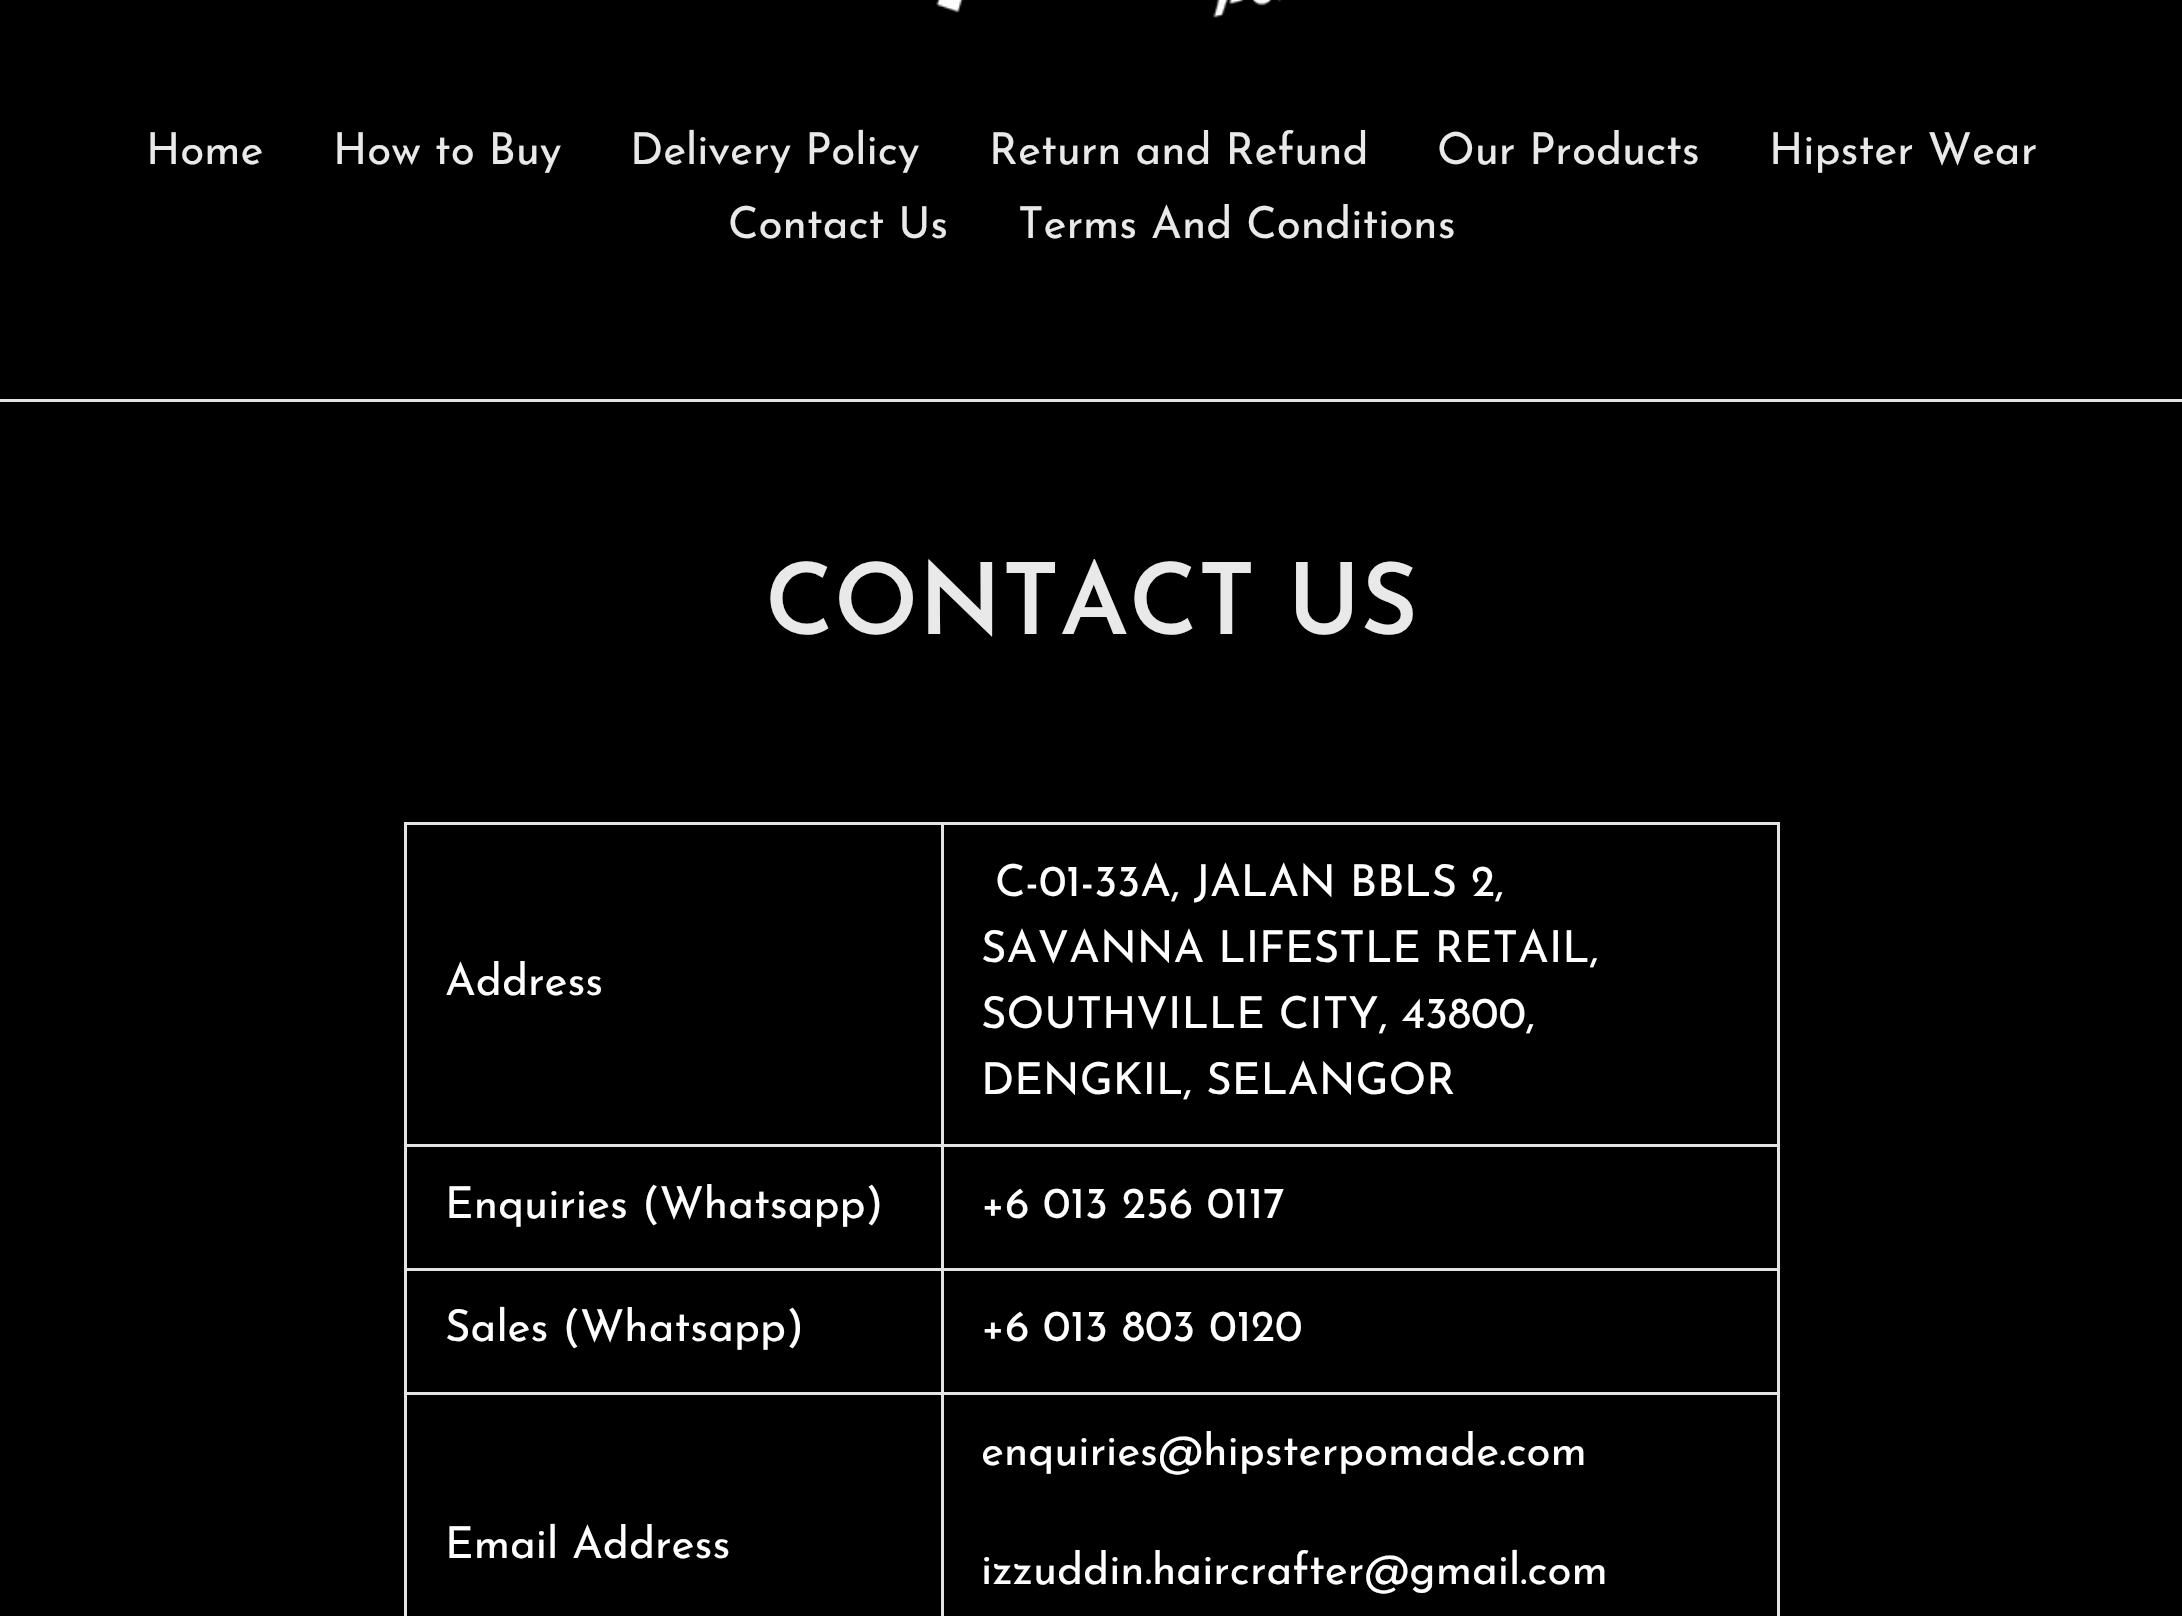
void draw(SkCanvas* canvas) {
	SkPaint fill;
	fill.setAntiAlias(true);
	auto makeFont = [&](const char* family, int weight, float size, bool italic = false) {
		SkFontStyle style(weight, SkFontStyle::kNormal_Width,
			italic ? SkFontStyle::kItalic_Slant : SkFontStyle::kUpright_Slant);
		SkFont result(fontMgr->matchFamilyStyle(family, style), size);
		result.setSubpixel(true);
		return result;
	};
	auto text = [&](const char* s, float x, float y, const SkFont& font) {
		canvas->drawString(s, x, y, font, fill);
	};
	auto box = [&](float l, float t, float r, float b) {
		canvas->drawRect(SkRect::MakeLTRB(l, t, r, b), fill);
	};
	auto picture = [&](const char* path, float l, float t, float r, float b) {
		auto image = SkImages::DeferredFromEncodedData(SkData::MakeFromFileName(path));
		canvas->drawImageRect(image, SkRect::MakeLTRB(l, t, r, b), SkSamplingOptions());
	};
	canvas->clear(0xFF000000);
	picture("image0.png", 936, 0, 1282, 18);
	fill.setColor(0xFFE4E4E4);
	box(0, 399, 2182, 402);
	box(941, 822, 1779, 825);
	box(941, 1144, 1779, 1147);
	box(941, 1268, 1779, 1271);
	box(941, 1392, 1779, 1395);
	box(941, 1392, 944, 1616);
	box(404, 1392, 943, 1395);
	box(941, 1268, 944, 1394);
	box(404, 1268, 943, 1271);
	box(941, 1144, 944, 1271);
	box(404, 1144, 943, 1147);
	box(941, 822, 944, 1147);
	box(404, 822, 943, 825);
	box(404, 1392, 407, 1616);
	box(404, 1268, 407, 1394);
	box(404, 1144, 407, 1271);
	box(404, 822, 407, 1147);
	box(1777, 1392, 1780, 1616);
	box(1777, 1268, 1780, 1394);
	box(1777, 1144, 1780, 1271);
	box(1777, 822, 1780, 1147);
	auto font1 = makeFont("Josefin Sans", 400, 44);
	fill.setColor(0xFFE9E9E9);
	text("Home", 146, 164, font1);
	text("How to Buy", 333, 164, font1);
	text("Delivery Policy", 630, 164, font1);
	text("Return and Refund", 989, 164, font1);
	text("Our Products", 1437, 164, font1);
	text("Hipster Wear", 1769, 164, font1);
	text("Contact Us", 728, 238, font1);
	text("Terms And Conditions", 1018, 238, font1);
	auto font2 = makeFont("Josefin Sans", 600, 99);
	text("CONTACT US", 765, 634, font2);
	fill.setColor(0xFFFFFFFF);
	text("Address", 445, 995, font1);
	text("C-01-33A, JALAN BBLS 2,", 995, 896, font1);
	text("SAVANNA LIFESTLE RETAIL,", 981, 962, font1);
	text("SOUTHVILLE CITY, 43800,", 981, 1028, font1);
	text("DENGKIL, SELANGOR", 981, 1094, font1);
	text("Enquiries (Whatsapp)", 445, 1218, font1);
	text("+6 013 256 0117", 981, 1218, font1);
	text("Sales (Whatsapp)", 445, 1341, font1);
	text("+6 013 803 0120", 981, 1341, font1);
	text("Email Address", 445, 1558, font1);
	text("enquiries@hipsterpomade.com", 981, 1465, font1);
	text("izzuddin.haircrafter@gmail.com", 981, 1584, font1);
}
